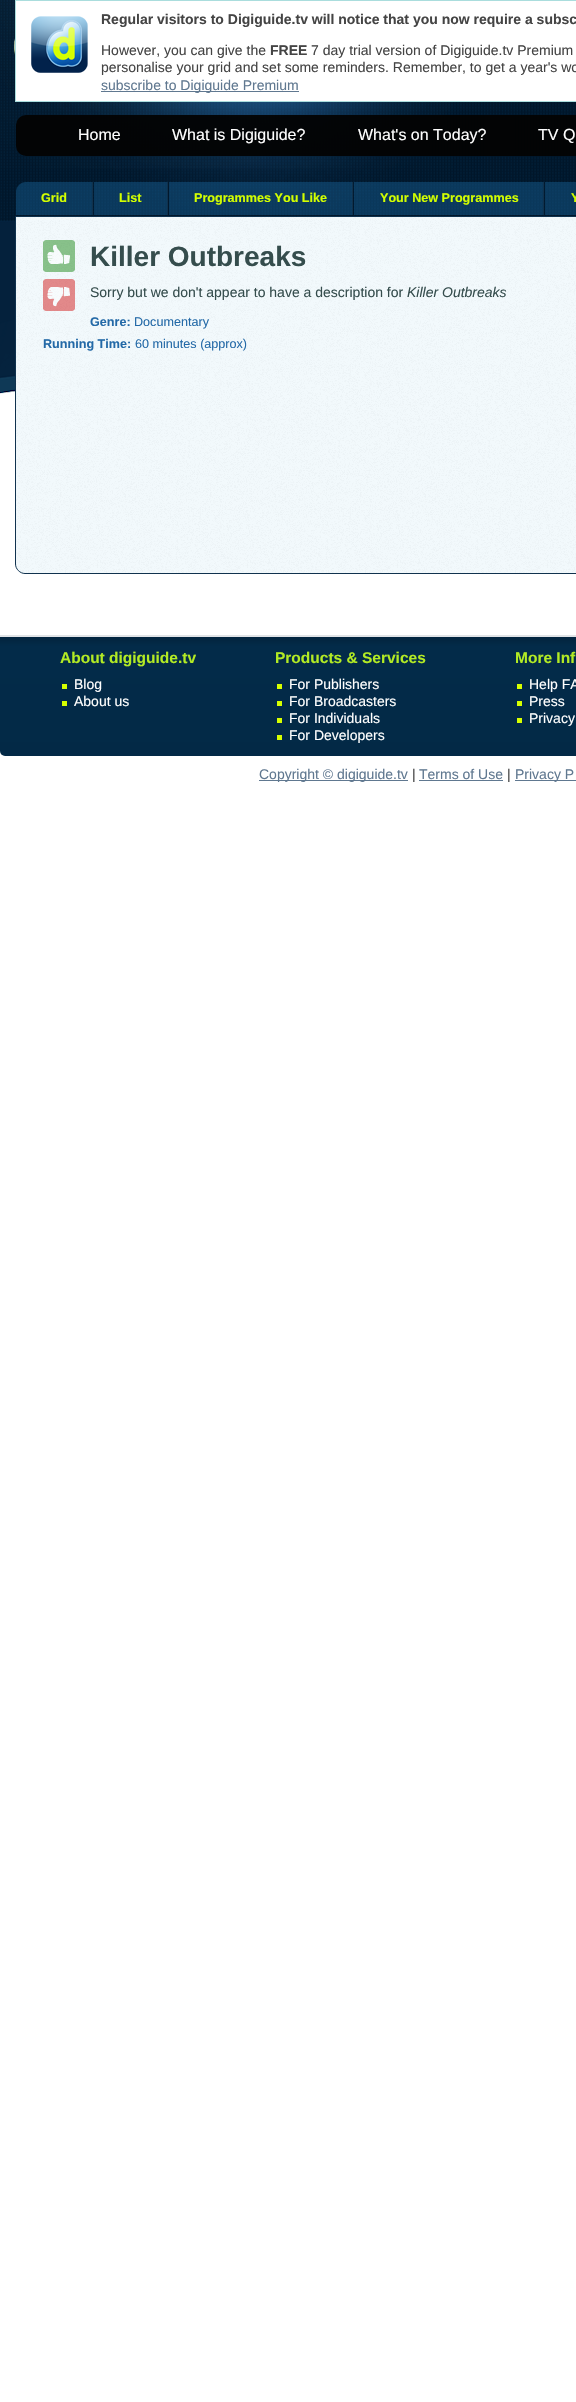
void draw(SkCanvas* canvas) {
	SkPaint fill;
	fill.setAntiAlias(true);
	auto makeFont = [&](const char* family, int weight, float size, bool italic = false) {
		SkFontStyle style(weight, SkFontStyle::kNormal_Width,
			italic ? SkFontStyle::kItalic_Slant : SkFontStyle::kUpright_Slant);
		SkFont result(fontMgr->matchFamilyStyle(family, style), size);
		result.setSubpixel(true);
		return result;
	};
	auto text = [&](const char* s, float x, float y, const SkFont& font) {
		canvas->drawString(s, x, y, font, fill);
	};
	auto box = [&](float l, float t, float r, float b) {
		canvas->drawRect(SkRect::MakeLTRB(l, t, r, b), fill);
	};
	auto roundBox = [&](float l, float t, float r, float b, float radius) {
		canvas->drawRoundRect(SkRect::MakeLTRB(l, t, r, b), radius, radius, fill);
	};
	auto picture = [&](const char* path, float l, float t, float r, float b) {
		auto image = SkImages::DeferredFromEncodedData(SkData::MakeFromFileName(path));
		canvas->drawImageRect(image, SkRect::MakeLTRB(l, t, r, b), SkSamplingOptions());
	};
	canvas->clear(0xFFFFFFFF);
	picture("image0.png", 0, 0, 576, 394);
	fill.setColor(0xFFFFFFFF);
	canvas->drawRect(SkRect::MakeLTRB(15.5f, 0.5f, 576.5f, 101.5f), fill);
	fill.setStyle(SkPaint::kStroke_Style);
	fill.setStrokeWidth(1);
	fill.setColor(0xFFAADDDD);
	canvas->drawRect(SkRect::MakeLTRB(15.5f, 0.5f, 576.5f, 101.5f), fill);
	picture("image1.png", 31, 16, 88, 73);
	fill.setStyle(SkPaint::kFill_Style);
	fill.setColor(0xFF607890);
	box(101, 91, 299, 92);
	fill.setColor(0x661869A3);
	canvas->drawPath(SkPathBuilder().moveTo(26, 182).lineTo(93, 182).lineTo(93, 215).lineTo(16, 215).lineTo(16, 192).cubicTo(16, 186.5f, 20.5f, 182, 26, 182).close().detach(), fill);
	fill.setColor(0xFF10324E);
	box(92, 182, 93, 215);
	fill.setColor(0x661869A3);
	box(94, 182, 167, 215);
	fill.setColor(0xFF10324E);
	box(167, 182, 168, 215);
	fill.setColor(0x661869A3);
	box(169, 182, 352, 215);
	fill.setColor(0xFF10324E);
	box(352, 182, 353, 215);
	fill.setColor(0x661869A3);
	box(354, 182, 543, 215);
	fill.setColor(0xFF10324E);
	box(543, 182, 544, 215);
	fill.setColor(0x661869A3);
	box(545, 182, 576, 215);
	picture("image2.png", 15, 217, 576, 574);
	fill.setStyle(SkPaint::kStroke_Style);
	fill.setColor(0xFF10324E);
	canvas->drawPath(SkPathBuilder().moveTo(15.5f, 216.5f).lineTo(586.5f, 216.5f).lineTo(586.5f, 564).cubicTo(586.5f, 569, 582, 573.5f, 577, 573.5f).lineTo(25, 573.5f).cubicTo(20, 573.5f, 15.5f, 569, 15.5f, 564).close().detach(), fill);
	picture("image3.png", 43, 240, 75, 272);
	picture("image4.png", 43, 279, 75, 311);
	picture("image5.png", 14, 38, 15, 55);
	fill.setStyle(SkPaint::kFill_Style);
	fill.setColor(0xF2020202);
	roundBox(16, 115, 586, 156, 10);
	picture("image6.png", 0, 635, 576, 756);
	fill.setColor(0xFFD7FF00);
	box(62, 684, 67, 689);
	box(62, 701, 67, 706);
	box(277, 684, 282, 689);
	box(277, 701, 282, 706);
	box(277, 718, 282, 723);
	box(277, 735, 282, 740);
	box(517, 684, 522, 689);
	box(517, 701, 522, 706);
	box(517, 718, 522, 723);
	fill.setColor(0xFF607890);
	box(259, 780, 408, 781);
	box(419, 780, 503, 781);
	box(515, 780, 576, 781);
	auto font1 = makeFont("Liberation Sans", 700, 14);
	fill.setColor(0xFF444444);
	text("Regular visitors to Digiguide.tv will notice that you now require a subsc", 101, 24, font1);
	auto font2 = makeFont("Liberation Sans", 400, 14);
	text("However, you can give the", 101, 55, font2);
	text("FREE", 270, 55, font1);
	text("7 day trial version of Digiguide.tv Premium", 311, 55, font2);
	text("personalise your grid and set some reminders. Remember, to get a year's wo", 101, 72, font2);
	fill.setColor(0xFF607890);
	text("subscribe to Digiguide Premium", 101, 90, font2);
	auto font3 = makeFont("Liberation Sans", 700, 12.6f);
	fill.setColor(0xFFD3FF00);
	text("Grid", 41, 202, font3);
	text("List", 119, 202, font3);
	text("Programmes You Like", 194, 202, font3);
	text("Your New Programmes", 380, 202, font3);
	text("Y", 571, 202, font3);
	auto font4 = makeFont("Liberation Sans", 700, 28);
	fill.setColor(0xFF354D4D);
	text("Killer Outbreaks", 90, 266, font4);
	text("Sorry but we don't appear to have a description for", 90, 297, font2);
	auto font5 = makeFont("Liberation Sans", 400, 14, true);
	text("Killer Outbreaks", 407, 297, font5);
	fill.setColor(0xFF2369A7);
	text("Genre:", 90, 326, font3);
	auto font6 = makeFont("Liberation Sans", 400, 12.6f);
	text("Documentary", 134, 326, font6);
	text("Running Time:", 43, 348, font3);
	text("60 minutes (approx)", 135, 348, font6);
	auto font7 = makeFont("Liberation Sans", 400, 16);
	fill.setColor(0xFFFFFFFF);
	text("Home", 78, 140, font7);
	text("What is Digiguide?", 172, 140, font7);
	text("What's on Today?", 358, 140, font7);
	text("TV Q", 538, 140, font7);
	auto font8 = makeFont("Liberation Sans", 700, 15.5f);
	fill.setColor(0xFFB3EB24);
	text("About digiguide.tv", 60, 663, font8);
	fill.setColor(0xFFFFFFFF);
	text("Blog", 74, 689, font2);
	text("About us", 74, 706, font2);
	fill.setColor(0xFFB3EB24);
	text("Products & Services", 275, 663, font8);
	fill.setColor(0xFFFFFFFF);
	text("For Publishers", 289, 689, font2);
	text("For Broadcasters", 289, 706, font2);
	text("For Individuals", 289, 723, font2);
	text("For Developers", 289, 740, font2);
	fill.setColor(0xFFB3EB24);
	text("More Inf", 515, 663, font8);
	fill.setColor(0xFFFFFFFF);
	text("Help FA", 529, 689, font2);
	text("Press", 529, 706, font2);
	text("Privacy", 529, 723, font2);
	fill.setColor(0xFF607890);
	text("Copyright © digiguide.tv", 259, 779, font2);
	fill.setColor(0xFF444444);
	text("|", 412, 779, font2);
	fill.setColor(0xFF607890);
	text("Terms of Use", 419, 779, font2);
	fill.setColor(0xFF444444);
	text("|", 507, 779, font2);
	fill.setColor(0xFF607890);
	text("Privacy P", 515, 779, font2);
}
